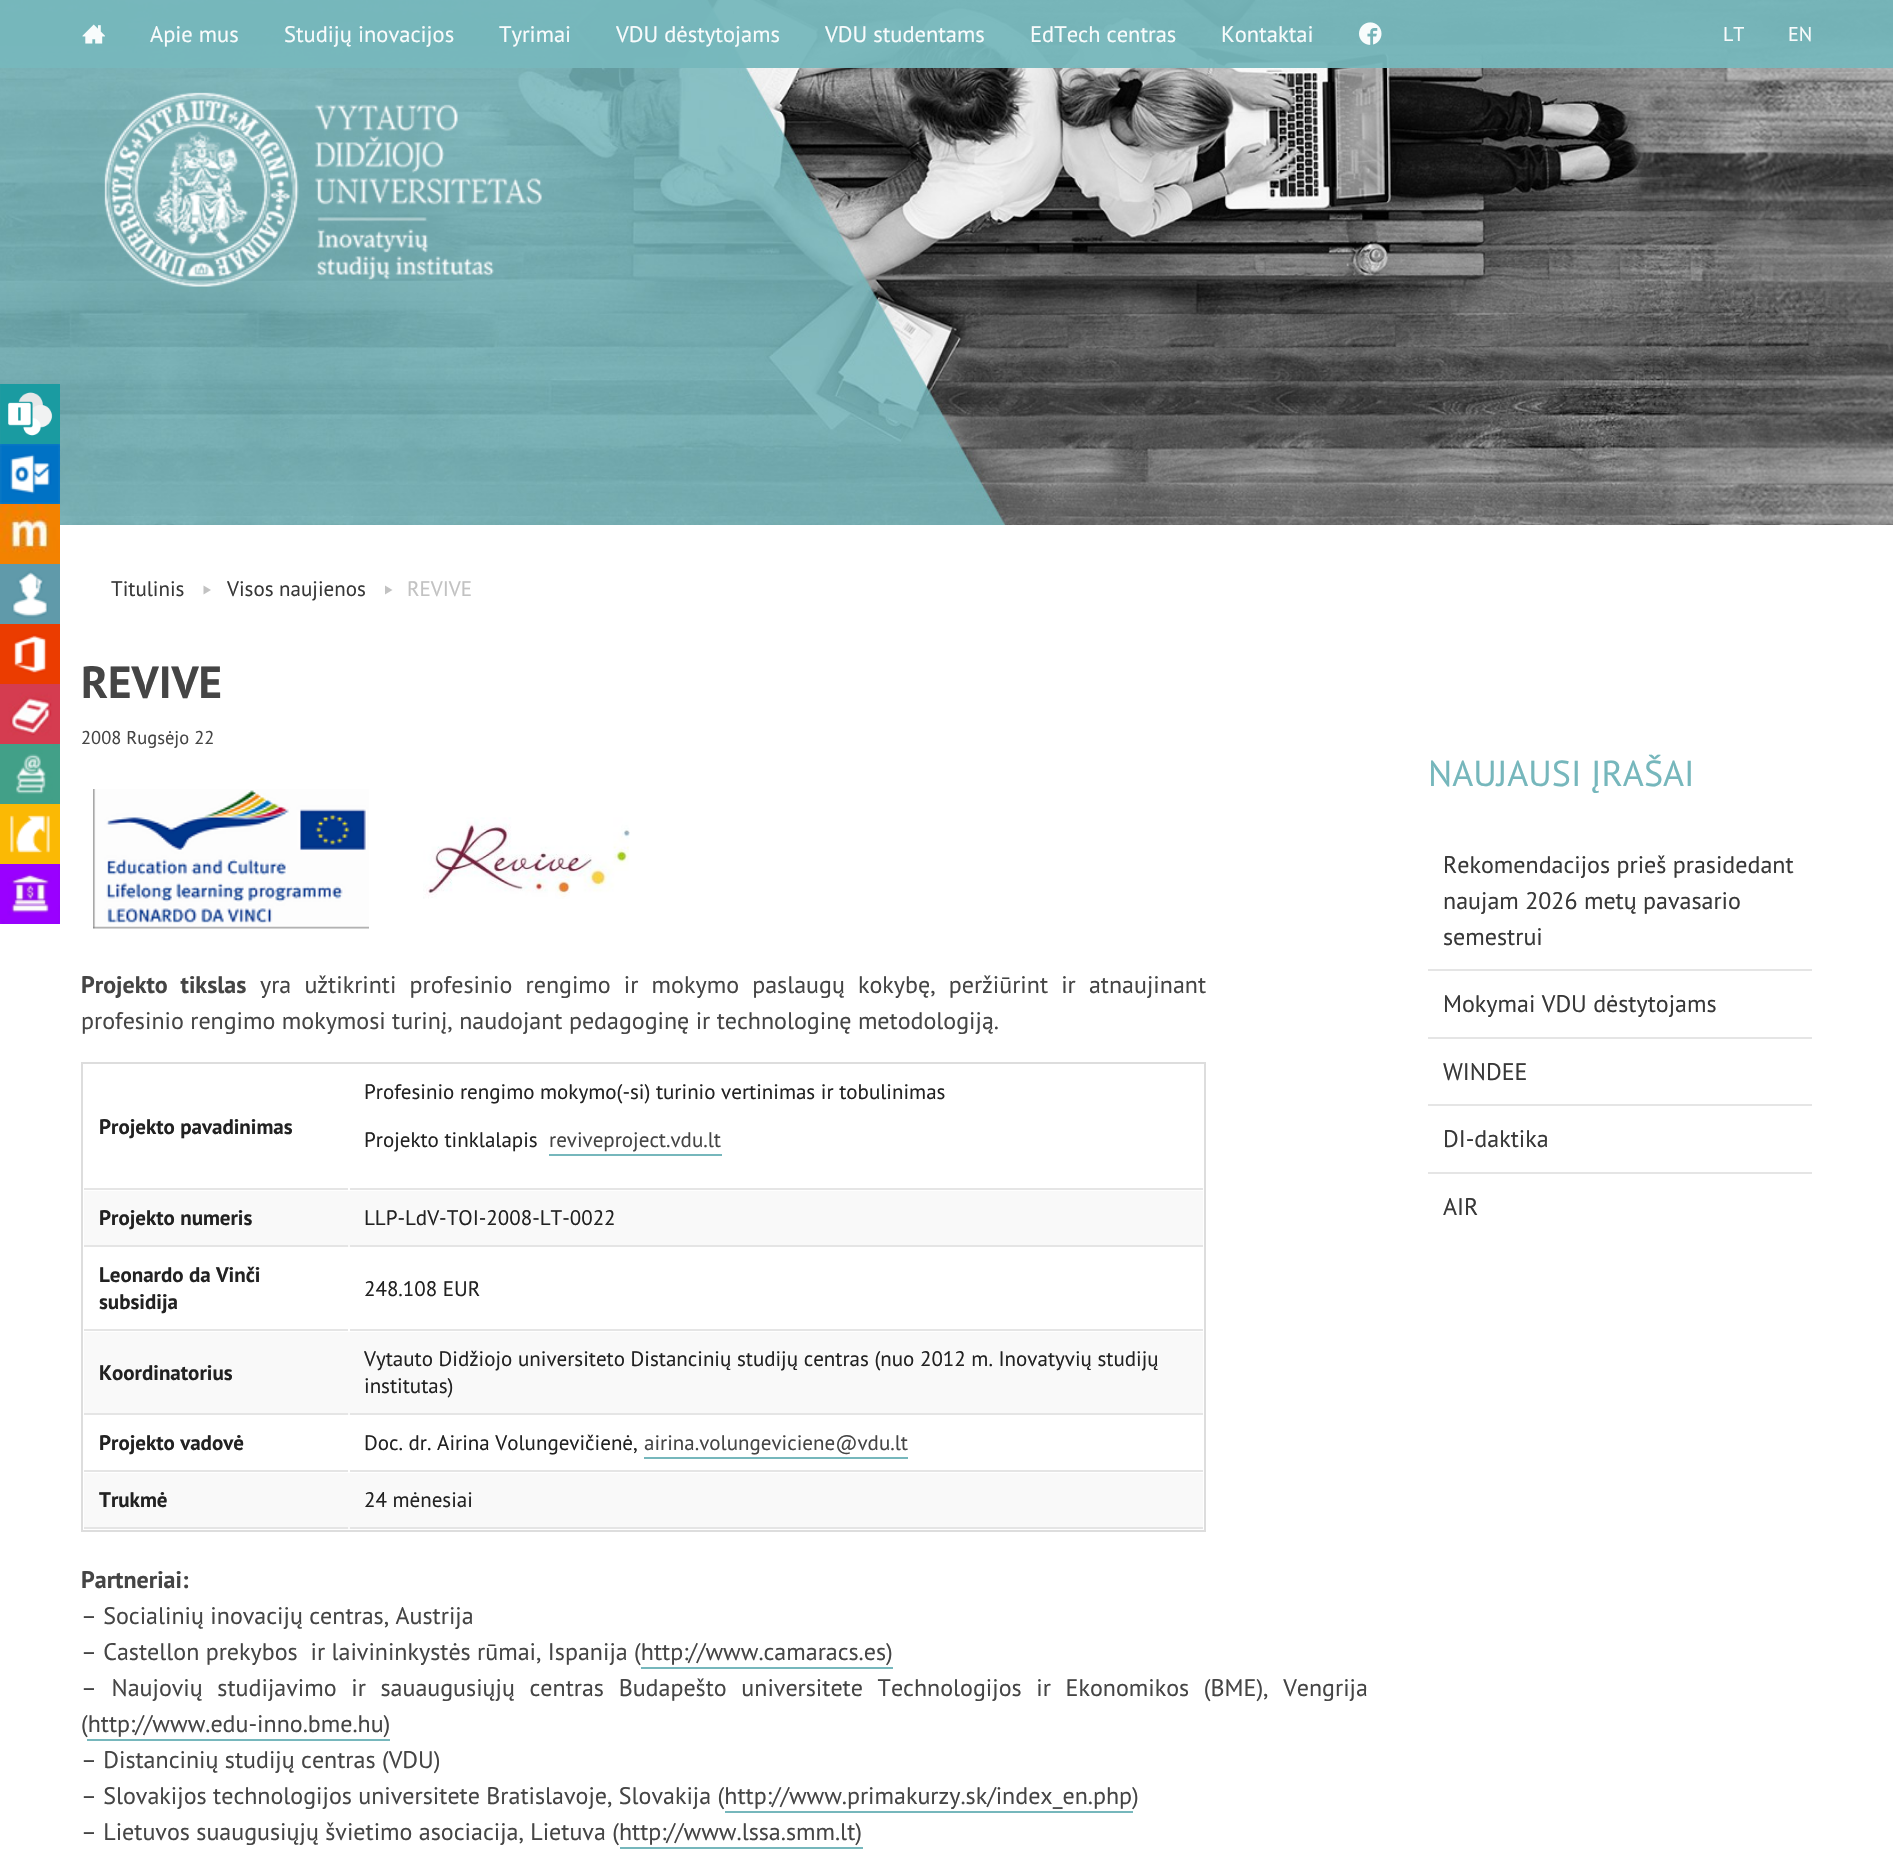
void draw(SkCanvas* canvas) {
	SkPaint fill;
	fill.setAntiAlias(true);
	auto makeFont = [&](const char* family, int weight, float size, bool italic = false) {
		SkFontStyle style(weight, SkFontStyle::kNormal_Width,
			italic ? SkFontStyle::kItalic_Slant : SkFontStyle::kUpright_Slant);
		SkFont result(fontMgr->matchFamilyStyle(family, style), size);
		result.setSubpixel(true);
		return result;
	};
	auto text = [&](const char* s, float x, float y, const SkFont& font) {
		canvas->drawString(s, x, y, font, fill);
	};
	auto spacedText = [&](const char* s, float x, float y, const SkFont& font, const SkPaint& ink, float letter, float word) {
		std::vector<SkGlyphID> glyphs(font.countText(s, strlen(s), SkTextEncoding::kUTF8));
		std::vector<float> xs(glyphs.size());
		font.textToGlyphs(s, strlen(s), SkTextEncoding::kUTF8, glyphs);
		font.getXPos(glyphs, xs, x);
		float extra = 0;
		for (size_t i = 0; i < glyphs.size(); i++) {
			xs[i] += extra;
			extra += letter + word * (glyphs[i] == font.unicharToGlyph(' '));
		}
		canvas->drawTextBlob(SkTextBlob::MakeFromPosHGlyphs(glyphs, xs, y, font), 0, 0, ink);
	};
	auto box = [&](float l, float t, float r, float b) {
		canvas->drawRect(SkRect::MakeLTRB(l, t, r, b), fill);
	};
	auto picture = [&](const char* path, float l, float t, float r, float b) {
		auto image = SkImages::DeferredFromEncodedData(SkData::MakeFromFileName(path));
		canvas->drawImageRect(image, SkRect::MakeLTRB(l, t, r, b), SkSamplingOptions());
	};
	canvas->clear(0xFFFFFFFF);
	picture("image0.png", 0, 0, 1893, 525);
	fill.setColor(0xF276B7BC);
	box(0, 0, 1893, 68);
	picture("image1.png", 82, 24, 105, 44);
	picture("image2.png", 1359, 22, 1382, 45);
	picture("image3.png", 104, 92, 542, 287);
	picture("image4.png", 0, 384, 60, 444);
	picture("image5.png", 0, 444, 60, 504);
	picture("image6.png", 0, 504, 60, 564);
	picture("image7.png", 0, 564, 60, 624);
	picture("image8.png", 0, 624, 60, 684);
	picture("image9.png", 0, 684, 60, 744);
	picture("image10.png", 0, 744, 60, 804);
	picture("image11.png", 0, 804, 60, 864);
	picture("image12.png", 0, 864, 60, 924);
	fill.setColor(0xFFC2C2C2);
	canvas->drawPath(SkPathBuilder().moveTo(203.5f, 585.5f).lineTo(211, 590).lineTo(203.5f, 594.5f).close().detach(), fill);
	canvas->drawPath(SkPathBuilder().moveTo(385, 585.5f).lineTo(392.5f, 590).lineTo(385, 594.5f).close().detach(), fill);
	picture("image13.png", 93, 789, 369, 929);
	picture("image14.png", 423, 817, 630, 899);
	fill.setStyle(SkPaint::kStroke_Style);
	fill.setStrokeWidth(2);
	fill.setColor(0xFFDDDDDD);
	canvas->drawRect(SkRect::MakeLTRB(82, 1063, 1205, 1531), fill);
	fill.setStyle(SkPaint::kFill_Style);
	fill.setColor(0xFFE5E5E5);
	box(84, 1188, 348, 1190);
	box(350, 1188, 1203, 1190);
	fill.setColor(0xFF76B7BC);
	box(549, 1154, 722, 1156);
	fill.setColor(0xFFF9F9F9);
	box(84, 1191, 1203, 1247);
	fill.setColor(0xFFE5E5E5);
	box(84, 1245, 348, 1247);
	box(350, 1245, 1203, 1247);
	box(84, 1329, 348, 1331);
	box(350, 1329, 1203, 1331);
	fill.setColor(0xFFF9F9F9);
	box(84, 1332, 1203, 1415);
	fill.setColor(0xFFE5E5E5);
	box(84, 1413, 348, 1415);
	box(350, 1413, 1203, 1415);
	box(84, 1470, 348, 1472);
	box(350, 1470, 1203, 1472);
	fill.setColor(0xFF76B7BC);
	box(644, 1457, 908, 1459);
	fill.setColor(0xFFF9F9F9);
	box(84, 1473, 1203, 1529);
	fill.setColor(0xFFE5E5E5);
	box(84, 1527, 348, 1529);
	box(350, 1527, 1203, 1529);
	fill.setColor(0xFF76B7BC);
	box(641, 1667, 893, 1669);
	box(87, 1739, 390, 1741);
	box(725, 1811, 1133, 1813);
	box(620, 1847, 863, 1849);
	fill.setColor(0xFFE5E5E5);
	box(1428, 969, 1812, 971);
	box(1428, 1037, 1812, 1039);
	box(1428, 1104, 1812, 1106);
	box(1428, 1172, 1812, 1174);
	auto font1 = makeFont("PT Sans", 400, 22.5f);
	fill.setColor(0xFFF8FBFC);
	text("Apie mus", 150, 42, font1);
	text("Studijų inovacijos", 284, 42, font1);
	text("Tyrimai", 499, 42, font1);
	text("VDU dėstytojams", 616, 42, font1);
	text("VDU studentams", 825, 42, font1);
	text("EdTech centras", 1030, 42, font1);
	text("Kontaktai", 1221, 42, font1);
	auto font2 = makeFont("PT Sans", 400, 20);
	text("LT", 1723, 41, font2);
	text("EN", 1788, 41, font2);
	auto font3 = makeFont("PT Sans", 400, 21);
	fill.setColor(0xFF383838);
	text("Titulinis", 111, 596, font3);
	text("Visos naujienos", 227, 596, font3);
	fill.setColor(0xFFC2C2C2);
	text("REVIVE", 407, 596, font3);
	auto font4 = makeFont("PT Sans", 700, 45);
	fill.setColor(0xFF454545);
	text("REVIVE", 81, 698, font4);
	auto font5 = makeFont("PT Sans", 400, 18.5f);
	text("2008 Rugsėjo 22", 81, 744, font5);
	auto font6 = makeFont("PT Sans", 700, 24);
	spacedText("Projekto tikslas", 81, 993, font6, fill, 0, 6.75f);
	auto font7 = makeFont("PT Sans", 400, 24);
	spacedText("yra užtikrinti profesinio rengimo ir mokymo paslaugų kokybę, peržiūrint ir atnaujinant", 260, 993, font7, fill, 0, 6.75f);
	text("profesinio rengimo mokymosi turinį, naudojant pedagoginę ir technologinę metodologiją.", 81, 1029, font7);
	auto font8 = makeFont("PT Sans", 700, 21);
	fill.setColor(0xFF222222);
	text("Projekto pavadinimas", 99, 1134, font8);
	text("Profesinio rengimo mokymo(-si) turinio vertinimas ir tobulinimas", 364, 1099, font3);
	text("Projekto tinklalapis", 364, 1147, font3);
	fill.setColor(0xFF454545);
	text("reviveproject.vdu.lt", 549, 1147, font3);
	fill.setColor(0xFF222222);
	text("Projekto numeris", 99, 1225, font8);
	text("LLP-LdV-TOI-2008-LT-0022", 364, 1225, font3);
	text("Leonardo da Vinči", 99, 1282, font8);
	text("subsidija", 99, 1309, font8);
	text("248.108 EUR", 364, 1296, font3);
	text("Koordinatorius", 99, 1380, font8);
	text("Vytauto Didžiojo universiteto Distancinių studijų centras (nuo 2012 m. Inovatyvių studijų", 364, 1366, font3);
	text("institutas)", 364, 1393, font3);
	text("Projekto vadovė", 99, 1450, font8);
	text("Doc. dr. Airina Volungevičienė,", 364, 1450, font3);
	fill.setColor(0xFF454545);
	text("airina.volungeviciene@vdu.lt", 644, 1450, font3);
	fill.setColor(0xFF222222);
	text("Trukmė", 99, 1507, font8);
	text("24 mėnesiai", 364, 1507, font3);
	fill.setColor(0xFF454545);
	text("Partneriai:", 81, 1588, font6);
	text("– Socialinių inovacijų centras, Austrija", 81, 1624, font7);
	text("– Castellon prekybos  ir laivininkystės rūmai, Ispanija (http://www.camaracs.es)", 81, 1660, font7);
	spacedText("– Naujovių studijavimo ir sauaugusiųjų centras Budapešto universitete Technologijos ir Ekonomikos (BME), Vengrija", 81, 1696, font7, fill, 0, 8.25f);
	text("(http://www.edu-inno.bme.hu)", 81, 1732, font7);
	text("– Distancinių studijų centras (VDU)", 81, 1768, font7);
	text("– Slovakijos technologijos universitete Bratislavoje, Slovakija (http://www.primakurzy.sk/index_en.php)", 81, 1804, font7);
	text("– Lietuvos suaugusiųjų švietimo asociacija, Lietuva (http://www.lssa.smm.lt)", 81, 1840, font7);
	auto font9 = makeFont("PT Sans", 400, 36);
	fill.setColor(0xFF76B7BC);
	text("NAUJAUSI ĮRAŠAI", 1428, 786, font9);
	fill.setColor(0xFF383838);
	text("Rekomendacijos prieš prasidedant", 1443, 873, font7);
	text("naujam 2026 metų pavasario", 1443, 909, font7);
	text("semestrui", 1443, 945, font7);
	text("Mokymai VDU dėstytojams", 1443, 1012, font7);
	text("WINDEE", 1443, 1080, font7);
	text("DI-daktika", 1443, 1147, font7);
	text("AIR", 1443, 1215, font7);
}
